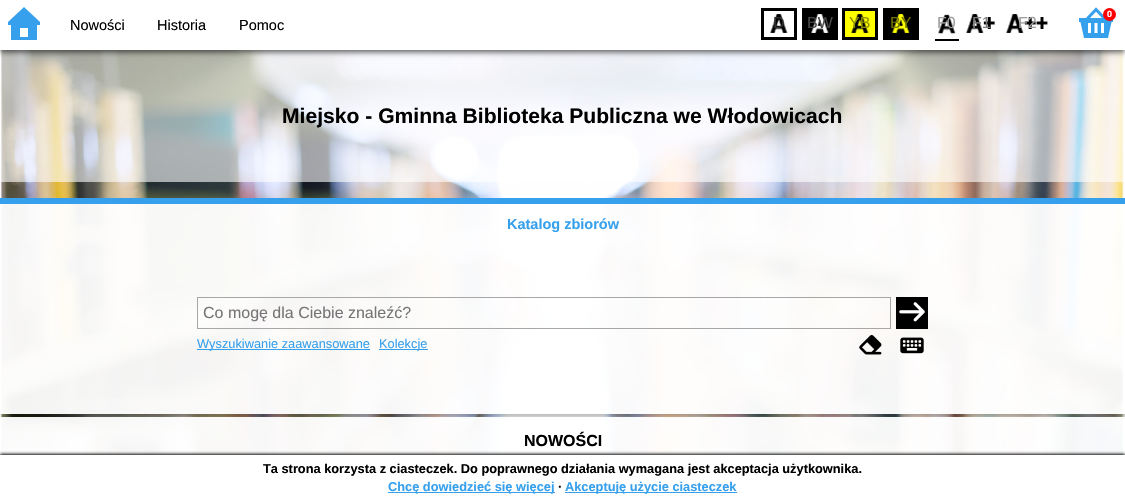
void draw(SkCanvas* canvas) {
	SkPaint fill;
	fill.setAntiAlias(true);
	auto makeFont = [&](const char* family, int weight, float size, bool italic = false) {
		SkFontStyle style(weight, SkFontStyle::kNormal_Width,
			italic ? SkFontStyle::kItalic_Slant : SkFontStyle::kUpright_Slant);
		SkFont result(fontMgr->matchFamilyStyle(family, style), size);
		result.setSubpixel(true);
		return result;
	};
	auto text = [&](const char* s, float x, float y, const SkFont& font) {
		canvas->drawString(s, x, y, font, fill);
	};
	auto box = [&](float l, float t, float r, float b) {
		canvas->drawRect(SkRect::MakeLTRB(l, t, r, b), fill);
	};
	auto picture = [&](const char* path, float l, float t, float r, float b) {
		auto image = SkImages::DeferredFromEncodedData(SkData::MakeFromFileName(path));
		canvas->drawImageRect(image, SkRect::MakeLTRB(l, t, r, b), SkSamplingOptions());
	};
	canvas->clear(0xFFFFFFFF);
	picture("image0.png", 0, 50, 1125, 455);
	fill.setColor(0x99FFFFFF);
	box(0, 50, 1125, 182);
	fill.setColor(0xA6000000);
	fill.setMaskFilter(SkMaskFilter::MakeBlur(kNormal_SkBlurStyle, 3));
	canvas->drawRect(SkRect::MakeLTRB(0, 2, 1125, 52), fill);
	fill.setMaskFilter(nullptr);
	fill.setColor(0xFFFFFFFF);
	box(0, 0, 1125, 50);
	picture("image1.png", 8, 7, 40, 40);
	picture("image2.png", 1079, 7, 1113, 38);
	fill.setColor(0xFFFF0000);
	canvas->drawCircle(1109.5f, 14.5f, 6.5f, fill);
	picture("image3.png", 761, 8, 797, 40);
	picture("image4.png", 802, 8, 838, 40);
	picture("image5.png", 842, 8, 878, 40);
	picture("image6.png", 883, 8, 919, 40);
	picture("image7.png", 938, 14, 956, 34);
	fill.setColor(0xFF000000);
	box(935, 39, 959, 41);
	picture("image8.png", 966, 14, 995, 33);
	picture("image9.png", 1006, 14, 1048, 33);
	canvas->save();
	canvas->clipRect(SkRect::MakeLTRB(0, 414, 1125, 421));
	fill.setColor(0x40000000);
	fill.setMaskFilter(SkMaskFilter::MakeBlur(kNormal_SkBlurStyle, 2));
	canvas->drawRect(SkRect::MakeLTRB(2, 202, 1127, 418), fill);
	fill.setMaskFilter(nullptr);
	canvas->restore();
	fill.setColor(0xF2FFFFFF);
	box(0, 204, 1125, 414);
	fill.setColor(0xFF36A0EC);
	box(0, 198, 1125, 204);
	fill.setStyle(SkPaint::kStroke_Style);
	fill.setStrokeWidth(1);
	fill.setColor(0xFFA7A7A7);
	canvas->drawRect(SkRect::MakeLTRB(197.5f, 297.5f, 890.5f, 328.5f), fill);
	fill.setStyle(SkPaint::kFill_Style);
	fill.setColor(0xFF000000);
	box(896, 297, 928, 329);
	picture("image10.png", 899, 302, 925, 322);
	fill.setColor(0xFF36A0EC);
	box(197, 349, 370, 350);
	box(379, 349, 428, 350);
	picture("image11.png", 859, 335, 882, 355);
	picture("image12.png", 900, 337, 924, 354);
	fill.setColor(0xF2FFFFFF);
	box(0, 417, 1125, 455);
	fill.setColor(0xFF000000);
	fill.setMaskFilter(SkMaskFilter::MakeBlur(kNormal_SkBlurStyle, 1.5f));
	canvas->drawRect(SkRect::MakeLTRB(0, 454, 1125, 503), fill);
	fill.setMaskFilter(nullptr);
	fill.setColor(0xFFFFFFFF);
	box(0, 455, 1125, 504);
	fill.setColor(0xFF36A0EC);
	box(388, 492, 555, 493);
	box(565, 492, 737, 493);
	auto font1 = makeFont("Liberation Sans", 400, 14.5f);
	fill.setColor(0xFF000000);
	text("Nowości", 70, 30, font1);
	text("Historia", 157, 30, font1);
	text("Pomoc", 239, 30, font1);
	auto font2 = makeFont("Liberation Sans", 700, 9);
	fill.setColor(0xFFFFFFFF);
	text("0", 1107, 17, font2);
	auto font3 = makeFont("Liberation Sans", 400, 16);
	fill.setColor(0xFF303030);
	text("D", 773, 28, font3);
	fill.setColor(0xFF484848);
	text("BW", 807, 28, font3);
	fill.setColor(0xFF8E8E00);
	text("YB", 849, 28, font3);
	fill.setColor(0xFF707000);
	text("BY", 890, 28, font3);
	fill.setColor(0xFF9F9F9F);
	text("F0", 937, 28, font3);
	fill.setColor(0xFF7E7E7E);
	text("F1", 972, 28, font3);
	fill.setColor(0xFF9F9F9F);
	text("F2", 1018, 28, font3);
	auto font4 = makeFont("Liberation Sans", 700, 21.1f);
	fill.setColor(0xFF000000);
	text("Miejsko - Gminna Biblioteka Publiczna we Włodowicach", 282, 123, font4);
	auto font5 = makeFont("Liberation Sans", 700, 14.5f);
	fill.setColor(0xFF36A0EC);
	text("Katalog zbiorów", 507, 229, font5);
	fill.setColor(0xFF757575);
	text("Co mogę dla Ciebie znaleźć?", 203, 318, font3);
	auto font6 = makeFont("Liberation Sans", 400, 12.8f);
	fill.setColor(0xFF36A0EC);
	text("Wyszukiwanie zaawansowane", 197, 348, font6);
	text("Kolekcje", 379, 348, font6);
	auto font7 = makeFont("Liberation Sans", 700, 16);
	fill.setColor(0xFF000000);
	text("NOWOŚCI", 524, 446, font7);
	auto font8 = makeFont("Liberation Sans", 700, 12.8f);
	text("Ta strona korzysta z ciasteczek. Do poprawnego działania wymagana jest akceptacja użytkownika.", 263, 473, font8);
	fill.setColor(0xFF36A0EC);
	text("Chcę dowiedzieć się więcej", 388, 491, font8);
	fill.setColor(0xFF000000);
	text("∙", 558, 491, font8);
	fill.setColor(0xFF36A0EC);
	text("Akceptuję użycie ciasteczek", 565, 491, font8);
}
